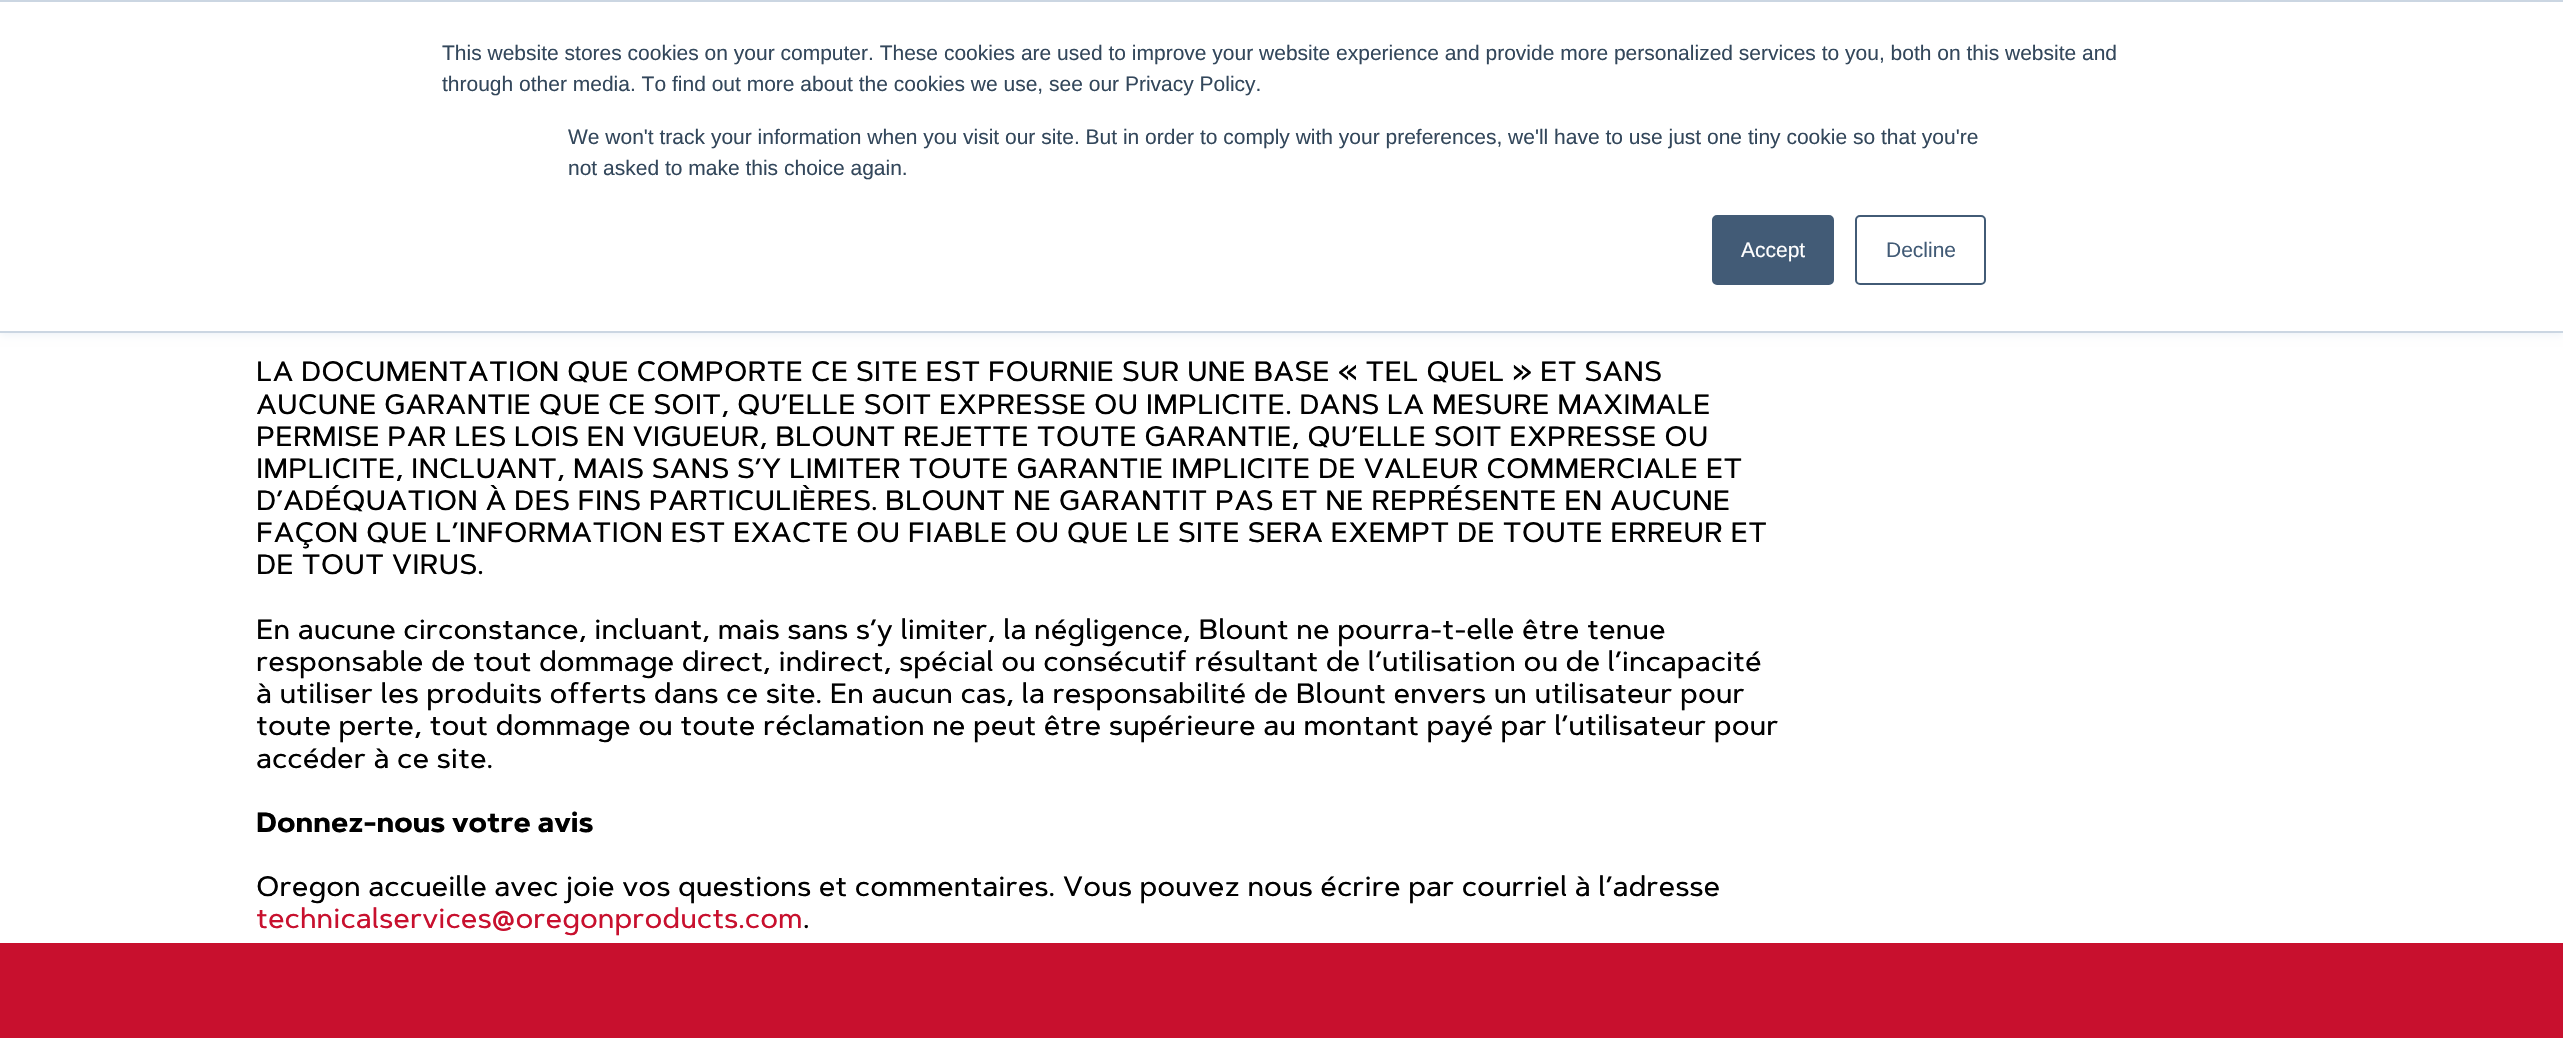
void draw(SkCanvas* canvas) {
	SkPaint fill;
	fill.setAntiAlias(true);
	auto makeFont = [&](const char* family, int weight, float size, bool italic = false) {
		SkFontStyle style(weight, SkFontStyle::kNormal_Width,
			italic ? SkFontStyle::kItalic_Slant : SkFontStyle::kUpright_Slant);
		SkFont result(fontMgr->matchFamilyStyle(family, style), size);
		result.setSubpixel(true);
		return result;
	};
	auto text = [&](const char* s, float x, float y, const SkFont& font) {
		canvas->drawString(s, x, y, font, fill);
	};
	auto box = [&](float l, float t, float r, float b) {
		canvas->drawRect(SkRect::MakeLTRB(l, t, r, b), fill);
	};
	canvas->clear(0xFFFFFFFF);
	fill.setColor(0xFFEAF0F6);
	fill.setMaskFilter(SkMaskFilter::MakeBlur(kNormal_SkBlurStyle, 4.5f));
	canvas->drawRect(SkRect::MakeLTRB(0, 2, 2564, 334), fill);
	fill.setMaskFilter(nullptr);
	fill.setColor(0xFFFFFFFF);
	box(0, 2, 2563, 331);
	fill.setColor(0xFFCBD6E2);
	box(0, 0, 2563, 2);
	box(0, 331, 2563, 333);
	fill.setColor(0xFF425B76);
	canvas->drawRoundRect(SkRect::MakeLTRB(1713, 216, 1833, 284), 4, 4, fill);
	fill.setStyle(SkPaint::kStroke_Style);
	fill.setStrokeWidth(2);
	canvas->drawRoundRect(SkRect::MakeLTRB(1713, 216, 1833, 284), 4, 4, fill);
	canvas->drawRoundRect(SkRect::MakeLTRB(1856, 216, 1985, 284), 4, 4, fill);
	fill.setStyle(SkPaint::kFill_Style);
	fill.setColor(0xFFC8102E);
	box(0, 943, 2563, 1038);
	auto font1 = makeFont("Liberation Sans", 400, 21);
	fill.setColor(0xFF33475B);
	text("This website stores cookies on your computer. These cookies are used to improve your website experience and provide more personalized services to you, both on this website and", 442, 60, font1);
	text("through other media. To find out more about the cookies we use, see our Privacy Policy.", 442, 91, font1);
	text("We won't track your information when you visit our site. But in order to comply with your preferences, we'll have to use just one tiny cookie so that you're", 568, 144, font1);
	text("not asked to make this choice again.", 568, 175, font1);
	fill.setColor(0xFFFFFFFF);
	text("Accept", 1741, 257, font1);
	fill.setColor(0xFF425B76);
	text("Decline", 1886, 257, font1);
	auto font2 = makeFont("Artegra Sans", 500, 28);
	fill.setColor(0xFF000000);
	text("LA DOCUMENTATION QUE COMPORTE CE SITE EST FOURNIE SUR UNE BASE « TEL QUEL » ET SANS", 256, 381, font2);
	text("AUCUNE GARANTIE QUE CE SOIT, QU’ELLE SOIT EXPRESSE OU IMPLICITE. DANS LA MESURE MAXIMALE", 256, 414, font2);
	text("PERMISE PAR LES LOIS EN VIGUEUR, BLOUNT REJETTE TOUTE GARANTIE, QU’ELLE SOIT EXPRESSE OU", 256, 446, font2);
	text("IMPLICITE, INCLUANT, MAIS SANS S’Y LIMITER TOUTE GARANTIE IMPLICITE DE VALEUR COMMERCIALE ET", 256, 478, font2);
	text("D’ADÉQUATION À DES FINS PARTICULIÈRES. BLOUNT NE GARANTIT PAS ET NE REPRÉSENTE EN AUCUNE", 256, 510, font2);
	text("FAÇON QUE L’INFORMATION EST EXACTE OU FIABLE OU QUE LE SITE SERA EXEMPT DE TOUTE ERREUR ET", 256, 542, font2);
	text("DE TOUT VIRUS.", 256, 574, font2);
	text("En aucune circonstance, incluant, mais sans s’y limiter, la négligence, Blount ne pourra-t-elle être tenue", 256, 639, font2);
	text("responsable de tout dommage direct, indirect, spécial ou consécutif résultant de l’utilisation ou de l’incapacité", 256, 671, font2);
	text("à utiliser les produits offerts dans ce site. En aucun cas, la responsabilité de Blount envers un utilisateur pour", 256, 703, font2);
	text("toute perte, tout dommage ou toute réclamation ne peut être supérieure au montant payé par l’utilisateur pour", 256, 735, font2);
	text("accéder à ce site.", 256, 768, font2);
	auto font3 = makeFont("Artegra Sans", 700, 28);
	text("Donnez-nous votre avis", 256, 832, font3);
	text("Oregon accueille avec joie vos questions et commentaires. Vous pouvez nous écrire par courriel à l’adresse", 256, 896, font2);
	fill.setColor(0xFFC8102E);
	text("technicalservices@oregonproducts.com", 256, 928, font2);
	fill.setColor(0xFF000000);
	text(".", 803, 928, font2);
}
